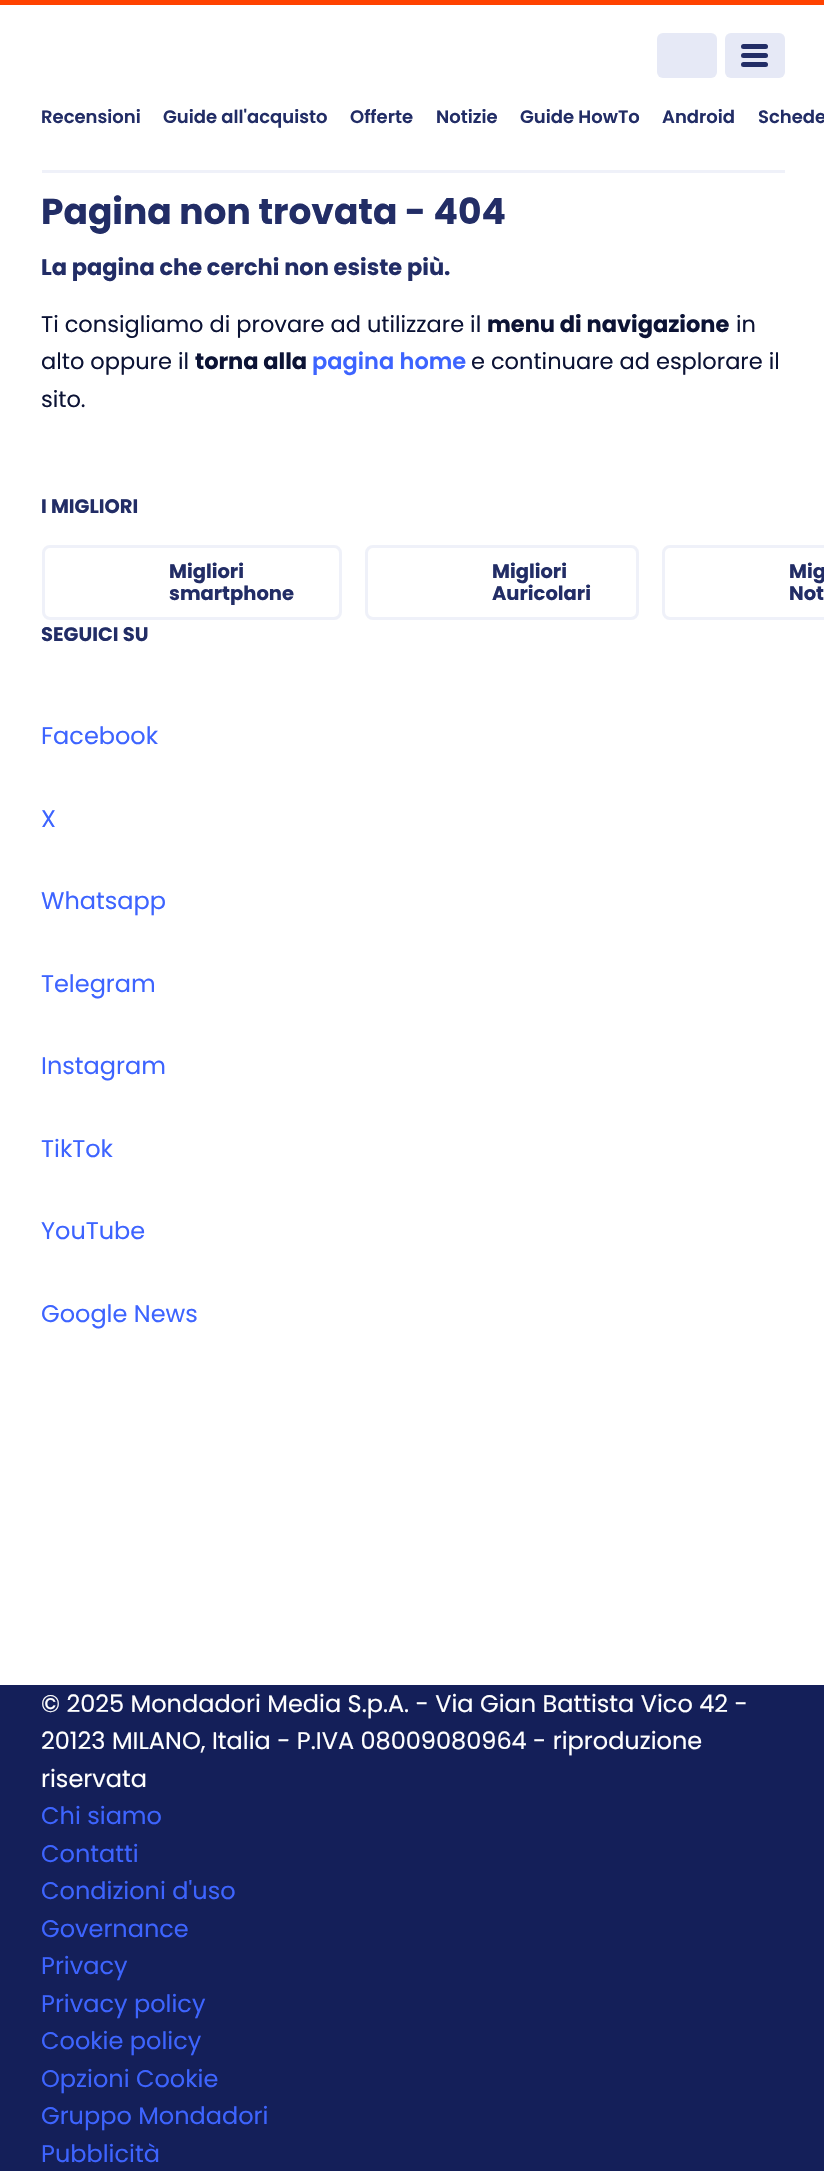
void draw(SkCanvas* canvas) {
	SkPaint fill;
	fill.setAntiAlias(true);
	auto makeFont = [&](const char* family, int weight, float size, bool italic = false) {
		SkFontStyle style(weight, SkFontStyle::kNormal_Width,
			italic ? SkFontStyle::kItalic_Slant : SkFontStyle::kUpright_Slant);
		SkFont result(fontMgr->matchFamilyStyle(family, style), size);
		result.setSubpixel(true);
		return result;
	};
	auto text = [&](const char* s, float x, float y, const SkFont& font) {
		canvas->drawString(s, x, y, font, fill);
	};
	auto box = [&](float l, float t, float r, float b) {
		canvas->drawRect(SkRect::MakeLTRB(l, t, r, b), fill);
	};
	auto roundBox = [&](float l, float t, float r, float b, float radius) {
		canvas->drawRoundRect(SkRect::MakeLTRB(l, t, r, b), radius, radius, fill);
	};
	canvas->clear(0xFFFFFFFF);
	fill.setColor(0xFFFF4200);
	box(0, 0, 824, 5);
	fill.setColor(0xFFE6E9F6);
	roundBox(657, 33, 717, 78, 6);
	roundBox(725, 33, 785, 78, 6);
	fill.setColor(0xFF222D66);
	roundBox(741, 44, 768, 49, 2.5f);
	roundBox(741, 53, 768, 58, 2.5f);
	roundBox(741, 62, 768, 67, 2.5f);
	fill.setColor(0xFFEFF1F9);
	box(42, 170, 785, 173);
	fill.setStyle(SkPaint::kStroke_Style);
	fill.setStrokeWidth(3);
	canvas->drawRoundRect(SkRect::MakeLTRB(43.5f, 546.5f, 340.5f, 618.5f), 6.5f, 6.5f, fill);
	canvas->drawRoundRect(SkRect::MakeLTRB(366.5f, 546.5f, 637.5f, 618.5f), 6.5f, 6.5f, fill);
	canvas->drawRoundRect(SkRect::MakeLTRB(663.5f, 546.5f, 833.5f, 618.5f), 6.5f, 6.5f, fill);
	fill.setStyle(SkPaint::kFill_Style);
	fill.setColor(0xFF141F59);
	box(0, 1685, 824, 2171);
	auto font1 = makeFont("Poppins", 600, 18);
	fill.setColor(0xFF222D66);
	text("Recensioni", 41, 123, font1);
	text("Guide all'acquisto", 163, 123, font1);
	text("Offerte", 350, 123, font1);
	text("Notizie", 436, 123, font1);
	text("Guide HowTo", 520, 123, font1);
	text("Android", 662, 123, font1);
	text("Schede", 758, 123, font1);
	auto font2 = makeFont("Poppins", 700, 36);
	text("Pagina non trovata - 404", 41, 224, font2);
	auto font3 = makeFont("Poppins", 700, 22.5f);
	text("La pagina che cerchi non esiste più.", 41, 275, font3);
	auto font4 = makeFont("Poppins", 400, 22.5f);
	fill.setColor(0xFF0C1335);
	text("Ti consigliamo di provare ad utilizzare il", 41, 332, font4);
	text("menu di navigazione", 487, 332, font3);
	text("in", 736, 332, font4);
	text("alto oppure il", 41, 369, font4);
	text("torna alla", 195, 369, font3);
	auto font5 = makeFont("Poppins", 600, 22.5f);
	fill.setColor(0xFF3D64FF);
	text("pagina home", 312, 369, font5);
	fill.setColor(0xFF0C1335);
	text("e continuare ad esplorare il", 471, 369, font4);
	text("sito.", 41, 407, font4);
	auto font6 = makeFont("Poppins", 700, 19.5f);
	fill.setColor(0xFF222D66);
	text("I MIGLIORI", 41, 513, font6);
	text("Migliori", 169, 578, font6);
	canvas->save();
	canvas->clipRect(SkRect::MakeLTRB(147, 560, 294, 605));
	text("smartphone", 169, 600, font6);
	canvas->restore();
	text("Migliori", 492, 578, font6);
	text("Auricolari", 492, 600, font6);
	text("Mig", 789, 578, font6);
	text("Not", 789, 600, font6);
	text("SEGUICI SU", 41, 641, font6);
	auto font7 = makeFont("Poppins", 400, 24);
	fill.setColor(0xFF3D64FF);
	text("Facebook", 41, 744, font7);
	text("X", 41, 827, font7);
	text("Whatsapp", 41, 909, font7);
	text("Telegram", 41, 992, font7);
	text("Instagram", 41, 1074, font7);
	text("TikTok", 41, 1157, font7);
	text("YouTube", 41, 1239, font7);
	text("Google News", 41, 1322, font7);
	fill.setColor(0xFFFFFFFF);
	text("© 2025 Mondadori Media S.p.A. - Via Gian Battista Vico 42 -", 41, 1712, font7);
	text("20123 MILANO, Italia - P.IVA 08009080964 - riproduzione", 41, 1749, font7);
	text("riservata", 41, 1787, font7);
	fill.setColor(0xFF3D64FF);
	text("Chi siamo", 41, 1824, font7);
	text("Contatti", 41, 1862, font7);
	text("Condizioni d'uso", 41, 1899, font7);
	text("Governance", 41, 1937, font7);
	text("Privacy", 41, 1974, font7);
	text("Privacy policy", 41, 2012, font7);
	text("Cookie policy", 41, 2049, font7);
	text("Opzioni Cookie", 41, 2087, font7);
	text("Gruppo Mondadori", 41, 2124, font7);
	text("Pubblicità", 41, 2162, font7);
}
